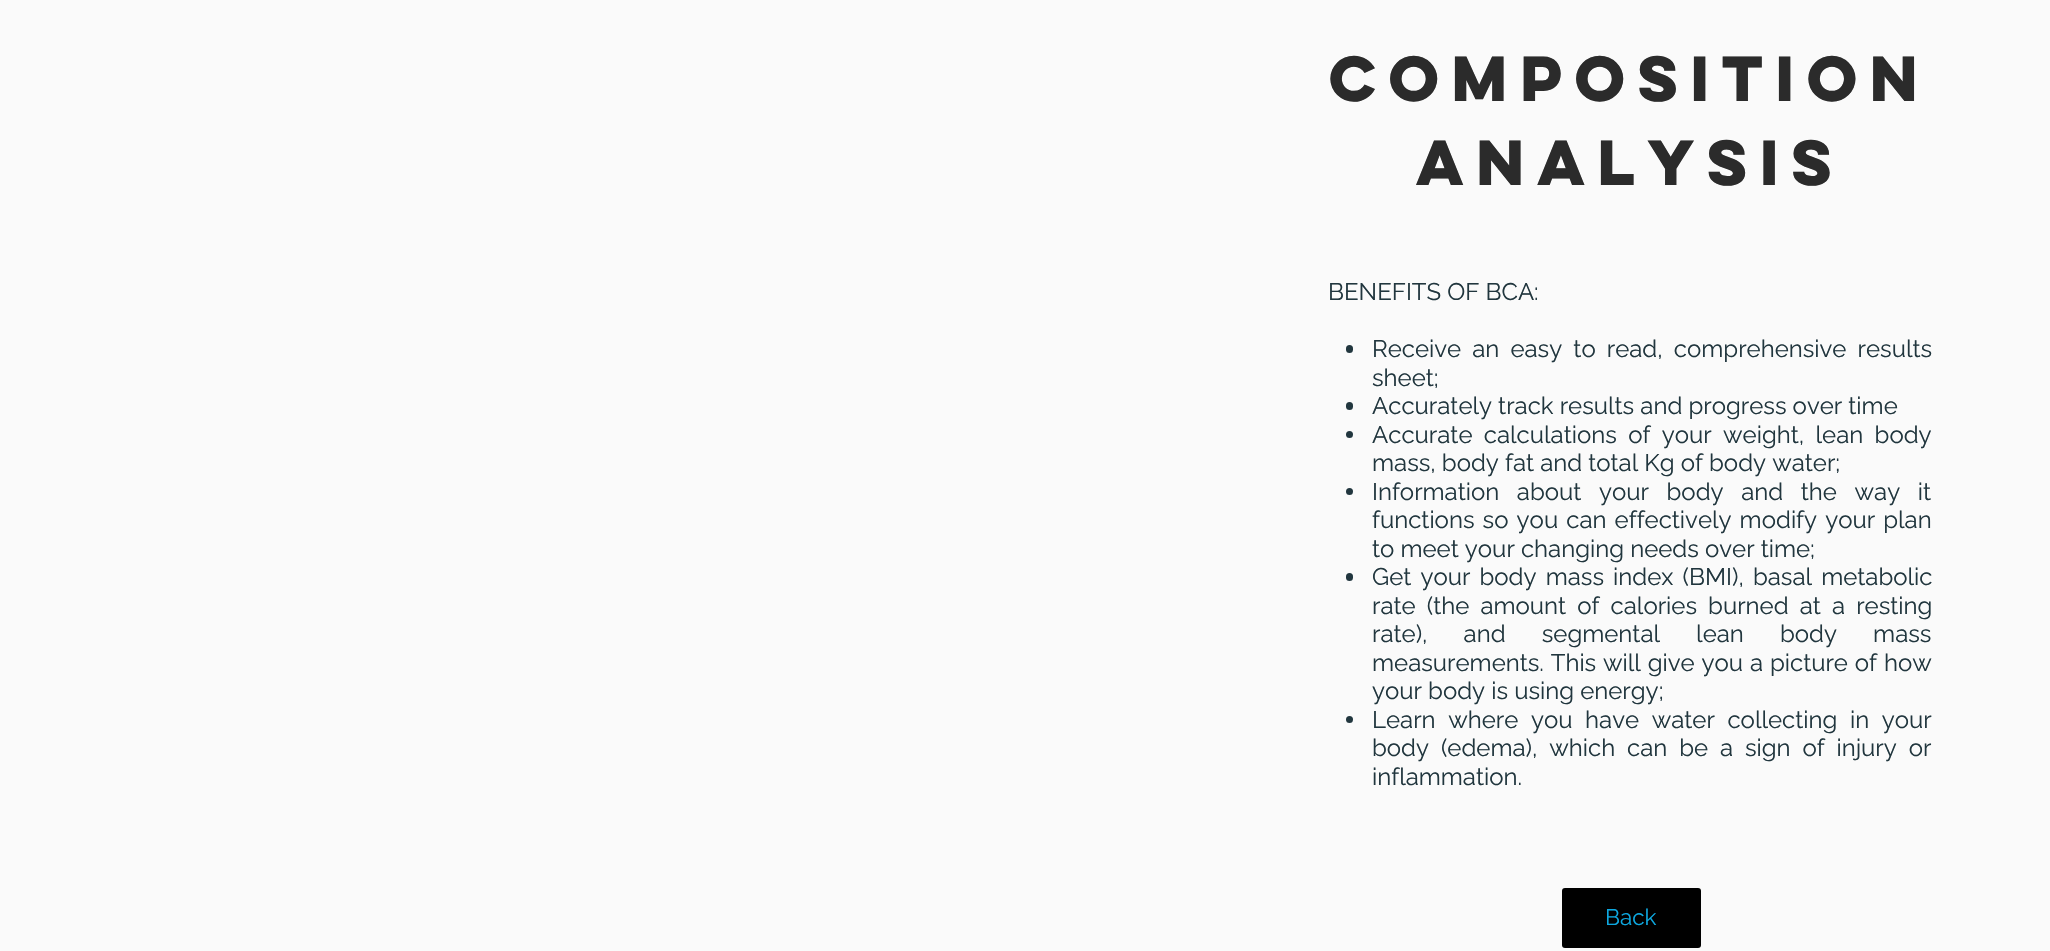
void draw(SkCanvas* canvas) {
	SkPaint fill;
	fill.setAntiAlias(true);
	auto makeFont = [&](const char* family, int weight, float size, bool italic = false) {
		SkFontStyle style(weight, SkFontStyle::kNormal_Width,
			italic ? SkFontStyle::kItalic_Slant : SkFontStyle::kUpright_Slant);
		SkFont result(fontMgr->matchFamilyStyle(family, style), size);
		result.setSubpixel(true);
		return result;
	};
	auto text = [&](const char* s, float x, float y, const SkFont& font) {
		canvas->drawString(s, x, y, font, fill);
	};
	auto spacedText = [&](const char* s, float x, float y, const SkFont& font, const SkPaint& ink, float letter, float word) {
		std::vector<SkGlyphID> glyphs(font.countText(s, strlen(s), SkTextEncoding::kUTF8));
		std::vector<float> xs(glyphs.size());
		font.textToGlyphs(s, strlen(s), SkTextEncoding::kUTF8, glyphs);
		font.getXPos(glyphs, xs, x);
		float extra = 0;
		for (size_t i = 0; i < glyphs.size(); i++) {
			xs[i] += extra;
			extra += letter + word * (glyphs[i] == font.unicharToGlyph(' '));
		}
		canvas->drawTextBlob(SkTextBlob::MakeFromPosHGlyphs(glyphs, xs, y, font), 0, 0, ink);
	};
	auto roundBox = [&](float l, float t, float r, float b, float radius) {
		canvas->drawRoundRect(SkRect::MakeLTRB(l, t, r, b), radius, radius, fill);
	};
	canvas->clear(0xFFFAFAFA);
	fill.setColor(0xFF21363E);
	roundBox(1346, 345, 1353, 353, 3.5f);
	roundBox(1346, 402, 1353, 410, 3.5f);
	canvas->drawCircle(1349.5f, 434.5f, 3.5f, fill);
	canvas->drawCircle(1349.5f, 491.5f, 3.5f, fill);
	roundBox(1346, 573, 1353, 581, 3.5f);
	canvas->drawCircle(1349.5f, 719.5f, 3.5f, fill);
	fill.setColor(0xFF000000);
	roundBox(1562, 888, 1701, 948, 3);
	auto font1 = makeFont("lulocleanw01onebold", 700, 57);
	fill.setColor(0xFF2B2B2B);
	text("composition", 1329, 101, font1);
	text("analysis", 1416, 185, font1);
	auto font2 = makeFont("Raleway", 400, 24);
	fill.setColor(0xFF21363E);
	text("BENEFITS OF BCA:", 1328, 300, font2);
	spacedText("Receive an easy to read, comprehensive results", 1372, 357, font2, fill, 0, 5);
	text("sheet;", 1372, 386, font2);
	text("Accurately track results and progress over time", 1372, 414, font2);
	spacedText("Accurate calculations of your weight, lean body", 1372, 443, font2, fill, 0, 5.25f);
	text("mass, body fat and total Kg of body water;", 1372, 471, font2);
	spacedText("Information about your body and the way it", 1372, 500, font2, fill, 0, 11.5f);
	spacedText("functions so you can effectively modify your plan", 1372, 528, font2, fill, 0, 2);
	text("to meet your changing needs over time;", 1372, 557, font2);
	spacedText("Get your body mass index (BMI), basal metabolic", 1372, 585, font2, fill, 0, 3);
	spacedText("rate (the amount of calories burned at a resting", 1372, 614, font2, fill, 0, 5);
	spacedText("rate), and segmental lean body mass", 1372, 642, font2, fill, 0, 30);
	spacedText("measurements. This will give you a picture of how", 1372, 671, font2, fill, 0, 0.75f);
	text("your body is using energy;", 1372, 699, font2);
	spacedText("Learn where you have water collecting in your", 1372, 728, font2, fill, 0, 6.5f);
	spacedText("body (edema), which can be a sign of injury or", 1372, 756, font2, fill, 0, 5.75f);
	text("inflammation.", 1372, 785, font2);
	auto font3 = makeFont("Raleway", 400, 22.5f);
	fill.setColor(0xFF0DA8E0);
	text("Back", 1605, 925, font3);
}
